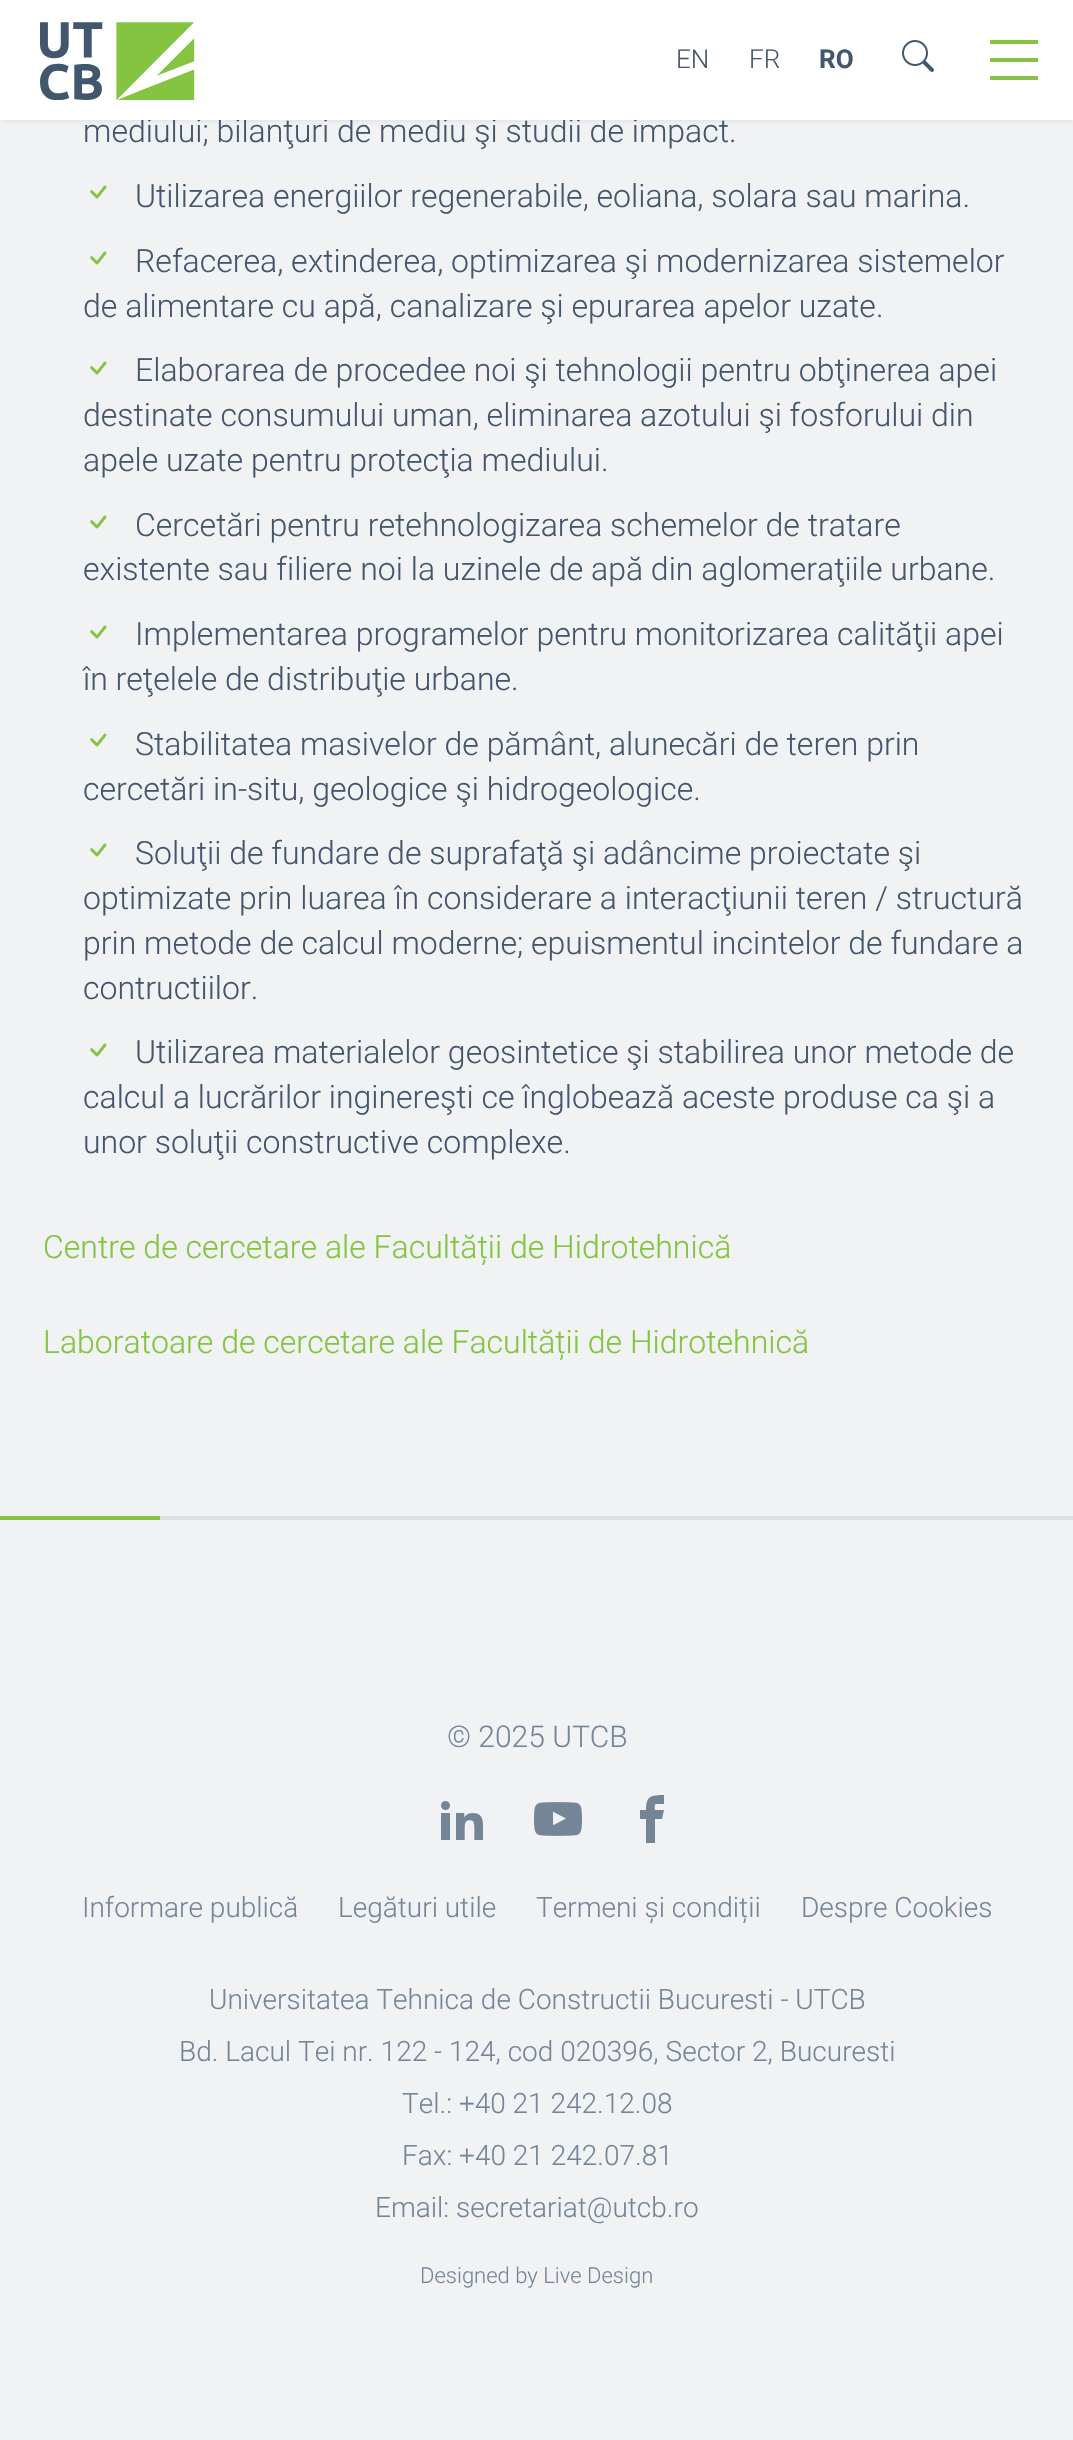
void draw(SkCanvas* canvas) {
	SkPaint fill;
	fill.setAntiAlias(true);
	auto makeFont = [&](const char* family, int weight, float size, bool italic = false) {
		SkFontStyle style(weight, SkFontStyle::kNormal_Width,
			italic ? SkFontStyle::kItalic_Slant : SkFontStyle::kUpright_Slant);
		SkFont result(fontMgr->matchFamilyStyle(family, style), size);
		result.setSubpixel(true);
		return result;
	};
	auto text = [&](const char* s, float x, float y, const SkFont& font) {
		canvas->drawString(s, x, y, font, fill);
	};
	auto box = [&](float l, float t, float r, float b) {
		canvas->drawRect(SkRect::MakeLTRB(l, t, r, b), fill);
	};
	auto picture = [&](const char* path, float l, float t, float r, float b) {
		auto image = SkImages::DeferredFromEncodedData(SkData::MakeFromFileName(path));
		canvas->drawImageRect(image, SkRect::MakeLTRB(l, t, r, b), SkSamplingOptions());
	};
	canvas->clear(0xFFF1F2F4);
	fill.setColor(0x1A4C5F77);
	fill.setMaskFilter(SkMaskFilter::MakeBlur(kNormal_SkBlurStyle, 2));
	canvas->drawRect(SkRect::MakeLTRB(2, 6, 1072, 122), fill);
	fill.setMaskFilter(nullptr);
	picture("image2.png", 90, 185, 107, 199);
	picture("image2.png", 90, 251, 107, 265);
	picture("image2.png", 90, 361, 107, 375);
	picture("image2.png", 90, 515, 107, 529);
	picture("image2.png", 90, 625, 107, 639);
	picture("image2.png", 90, 733, 107, 747);
	picture("image2.png", 90, 843, 107, 857);
	picture("image2.png", 90, 1043, 107, 1057);
	fill.setColor(0xFFDADFE4);
	box(160, 1516, 1073, 1520);
	fill.setColor(0xFF84C441);
	box(0, 1516, 160, 1520);
	picture("image3.png", 441, 1801, 483, 1840);
	picture("image4.png", 534, 1802, 582, 1836);
	fill.setColor(0xFF758598);
	canvas->drawPath(SkPathBuilder().moveTo(656, 1804).lineTo(664, 1804).lineTo(664, 1795).cubicTo(651, 1795, 646, 1796, 646, 1810).lineTo(640, 1810).lineTo(640, 1819).lineTo(646, 1819).lineTo(646, 1843).lineTo(655, 1843).lineTo(655, 1819).lineTo(662, 1819).lineTo(664, 1810).lineTo(655, 1810).cubicTo(655, 1809, 654, 1804, 656, 1804).close().detach(), fill);
	auto font1 = makeFont("Roboto", 300, 32);
	fill.setColor(0xFF45566C);
	text("mediului; bilanţuri de mediu şi studii de impact.", 83, 142, font1);
	fill.setColor(0xFFFFFFFF);
	box(0, 0, 1073, 120);
	fill.setColor(0xFF84C441);
	box(990, 76, 1038, 80);
	box(990, 58, 1038, 62);
	box(990, 40, 1038, 44);
	picture("image1.png", 902, 40, 934, 72);
	picture("image0.png", 40, 22, 195, 100);
	auto font2 = makeFont("Roboto", 700, 26);
	fill.setColor(0xFF45566C);
	text("RO", 819, 68, font2);
	auto font3 = makeFont("Roboto", 300, 26);
	text("FR", 749, 68, font3);
	text("EN", 676, 68, font3);
	text("Utilizarea energiilor regenerabile, eoliana, solara sau marina.", 135, 207, font1);
	text("Refacerea, extinderea, optimizarea şi modernizarea sistemelor", 135, 272, font1);
	text("de alimentare cu apă, canalizare şi epurarea apelor uzate.", 83, 317, font1);
	text("Elaborarea de procedee noi şi tehnologii pentru obţinerea apei", 135, 381, font1);
	text("destinate consumului uman, eliminarea azotului şi fosforului din", 83, 426, font1);
	text("apele uzate pentru protecţia mediului.", 83, 471, font1);
	text("Cercetări pentru retehnologizarea schemelor de tratare", 135, 536, font1);
	text("existente sau filiere noi la uzinele de apă din aglomeraţiile urbane.", 83, 580, font1);
	text("Implementarea programelor pentru monitorizarea calităţii apei", 135, 645, font1);
	text("în reţelele de distribuţie urbane.", 83, 690, font1);
	text("Stabilitatea masivelor de pământ, alunecări de teren prin", 135, 755, font1);
	text("cercetări in-situ, geologice şi hidrogeologice.", 83, 800, font1);
	text("Soluţii de fundare de suprafaţă şi adâncime proiectate şi", 135, 864, font1);
	text("optimizate prin luarea în considerare a interacţiunii teren / structură", 83, 909, font1);
	text("prin metode de calcul moderne; epuismentul incintelor de fundare a", 83, 954, font1);
	text("contructiilor.", 83, 999, font1);
	text("Utilizarea materialelor geosintetice şi stabilirea unor metode de", 135, 1063, font1);
	text("calcul a lucrărilor inginereşti ce înglobează aceste produse ca şi a", 83, 1108, font1);
	text("unor soluţii constructive complexe.", 83, 1153, font1);
	fill.setColor(0xFF84C441);
	text("Centre de cercetare ale Facultății de Hidrotehnică", 43, 1258, font1);
	text("Laboratoare de cercetare ale Facultății de Hidrotehnică", 43, 1353, font1);
	auto font4 = makeFont("Roboto", 300, 30);
	fill.setColor(0xFF758598);
	text("© 2025 UTCB", 447, 1747, font4);
	auto font5 = makeFont("Roboto", 300, 28);
	text("Informare publică", 82, 1917, font5);
	text("Legături utile", 338, 1917, font5);
	text("Termeni și condiții", 536, 1917, font5);
	text("Despre Cookies", 801, 1917, font5);
	text("Universitatea Tehnica de Constructii Bucuresti - UTCB", 209, 2009, font5);
	text("Bd. Lacul Tei nr. 122 - 124, cod 020396, Sector 2, Bucuresti", 179, 2061, font5);
	text("Tel.: +40 21 242.12.08", 402, 2113, font5);
	text("Fax: +40 21 242.07.81", 402, 2165, font5);
	text("Email: secretariat@utcb.ro", 375, 2217, font5);
	auto font6 = makeFont("Roboto", 300, 22);
	text("Designed by Live Design", 420, 2283, font6);
}
